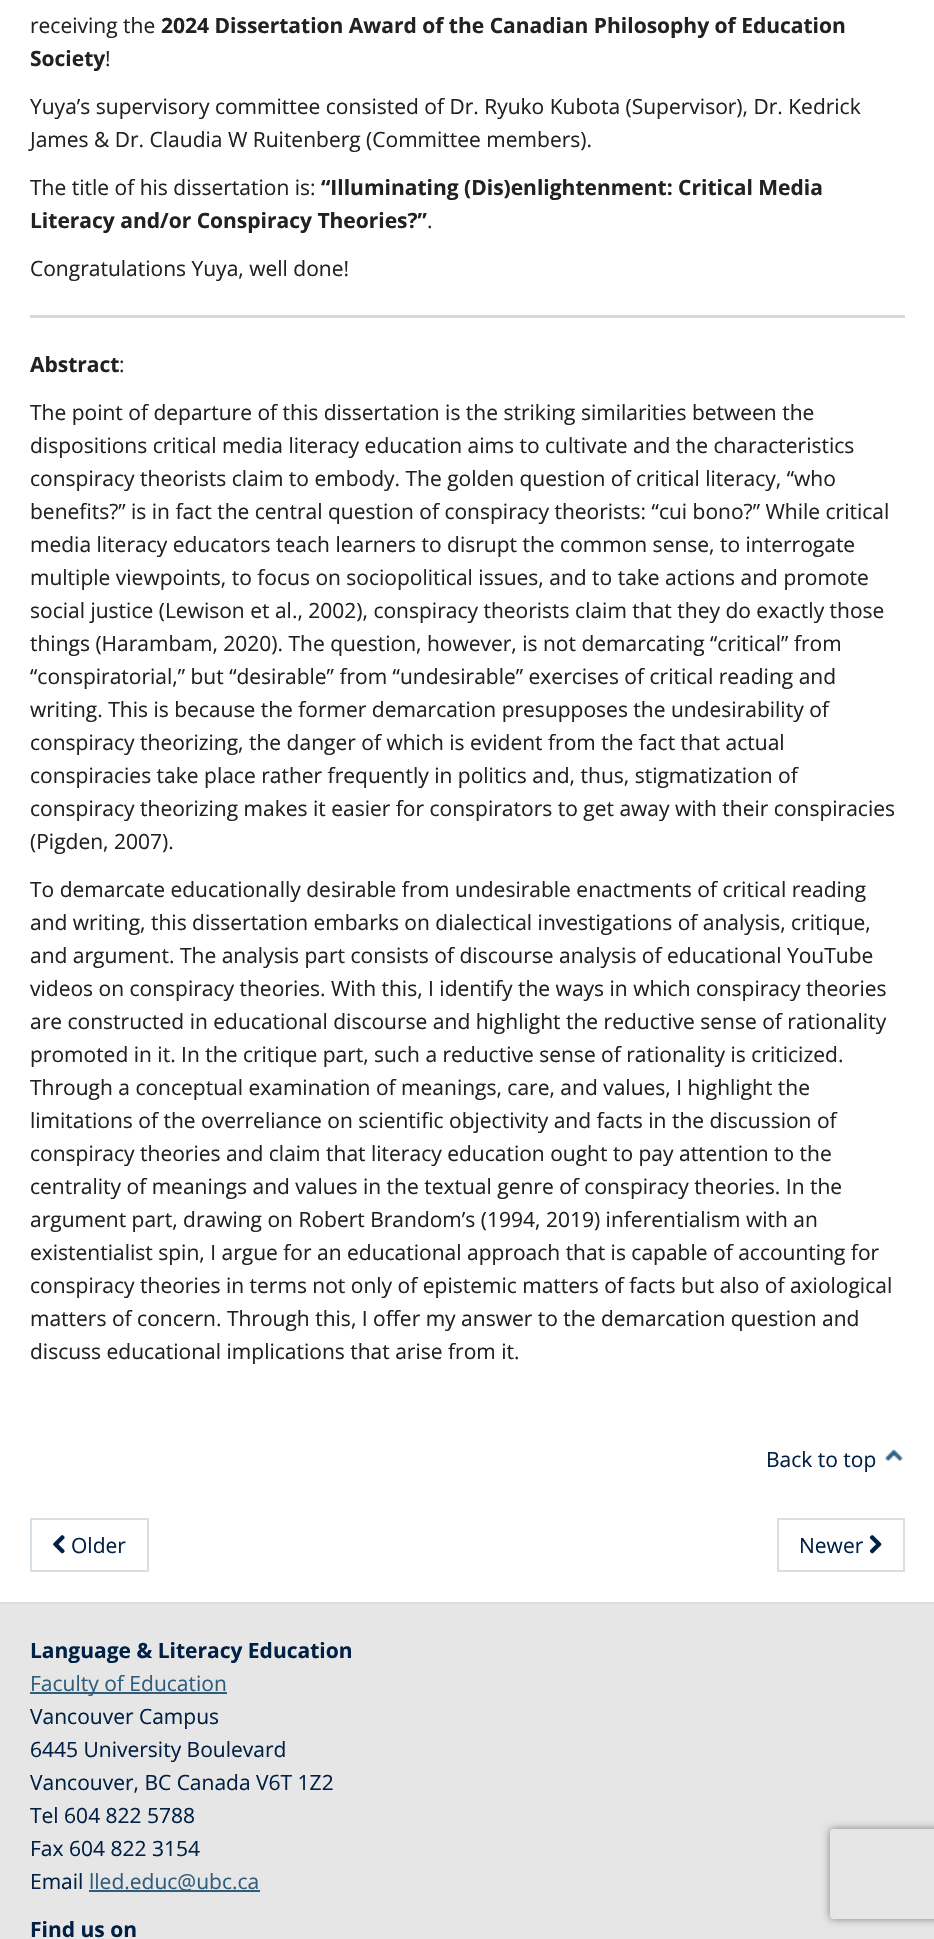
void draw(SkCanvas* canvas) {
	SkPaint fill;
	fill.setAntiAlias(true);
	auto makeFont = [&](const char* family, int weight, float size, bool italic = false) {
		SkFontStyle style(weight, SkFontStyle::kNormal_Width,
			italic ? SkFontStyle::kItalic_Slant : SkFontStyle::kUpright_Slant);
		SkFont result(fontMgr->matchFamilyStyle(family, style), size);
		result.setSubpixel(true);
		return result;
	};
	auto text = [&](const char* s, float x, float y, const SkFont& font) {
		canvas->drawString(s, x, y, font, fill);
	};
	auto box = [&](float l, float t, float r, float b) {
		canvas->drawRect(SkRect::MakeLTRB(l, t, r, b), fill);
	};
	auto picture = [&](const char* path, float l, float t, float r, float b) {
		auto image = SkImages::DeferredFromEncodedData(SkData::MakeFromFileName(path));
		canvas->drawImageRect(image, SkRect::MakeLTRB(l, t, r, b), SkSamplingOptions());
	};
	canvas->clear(0xFFFFFFFF);
	fill.setColor(0xFFD9D9D9);
	box(30, 315, 905, 318);
	picture("image0.png", 884, 1449, 904, 1461);
	fill.setStyle(SkPaint::kStroke_Style);
	fill.setStrokeWidth(2);
	fill.setColor(0xFFD7E0E7);
	canvas->drawRect(SkRect::MakeLTRB(31, 1519, 148, 1571), fill);
	picture("image1.png", 53, 1535, 65, 1554);
	canvas->drawRect(SkRect::MakeLTRB(778, 1519, 904, 1571), fill);
	picture("image2.png", 869, 1535, 882, 1554);
	fill.setStyle(SkPaint::kFill_Style);
	fill.setColor(0xFFE6E6E6);
	box(0, 1604, 934, 1939);
	fill.setColor(0xFFD7E0E7);
	box(0, 1602, 934, 1604);
	fill.setColor(0xFF2F5D7C);
	box(30, 1692, 227, 1694);
	box(89, 1890, 260, 1892);
	canvas->save();
	canvas->clipPath(SkPathBuilder(SkPathFillType::kEvenOdd).moveTo(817, 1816).lineTo(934, 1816).lineTo(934, 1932).lineTo(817, 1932).close().moveTo(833, 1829).lineTo(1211, 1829).cubicTo(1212.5f, 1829, 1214, 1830.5f, 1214, 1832).lineTo(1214, 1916).cubicTo(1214, 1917.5f, 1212.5f, 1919, 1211, 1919).lineTo(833, 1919).cubicTo(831.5f, 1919, 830, 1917.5f, 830, 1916).lineTo(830, 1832).cubicTo(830, 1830.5f, 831.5f, 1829, 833, 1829).close().detach(), true);
	fill.setColor(0xFF808080);
	fill.setMaskFilter(SkMaskFilter::MakeBlur(kNormal_SkBlurStyle, 4));
	canvas->drawRoundRect(SkRect::MakeLTRB(830, 1829, 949, 1919), 3, 3, fill);
	fill.setMaskFilter(nullptr);
	canvas->restore();
	auto font1 = makeFont("Open Sans", 400, 21);
	fill.setColor(0xFF222222);
	text("receiving the", 30, 33, font1);
	auto font2 = makeFont("Open Sans", 700, 21);
	text("2024 Dissertation Award of the Canadian Philosophy of Education", 161, 33, font2);
	text("Society", 30, 66, font2);
	text("!", 105, 66, font1);
	text("Yuya’s supervisory committee consisted of Dr. Ryuko Kubota (Supervisor), Dr. Kedrick", 30, 114, font1);
	text("James & Dr. Claudia W Ruitenberg (Committee members).", 30, 147, font1);
	text("The title of his dissertation is:", 30, 195, font1);
	text("“Illuminating (Dis)enlightenment: Critical Media", 321, 195, font2);
	text("Literacy and/or Conspiracy Theories?”", 30, 228, font2);
	text(".", 427, 228, font1);
	text("Congratulations Yuya, well done!", 30, 276, font1);
	text("Abstract", 30, 372, font2);
	text(":", 119, 372, font1);
	text("The point of departure of this dissertation is the striking similarities between the", 30, 420, font1);
	text("dispositions critical media literacy education aims to cultivate and the characteristics", 30, 453, font1);
	text("conspiracy theorists claim to embody. The golden question of critical literacy, “who", 30, 486, font1);
	text("benefits?” is in fact the central question of conspiracy theorists: “cui bono?” While critical", 30, 519, font1);
	text("media literacy educators teach learners to disrupt the common sense, to interrogate", 30, 552, font1);
	text("multiple viewpoints, to focus on sociopolitical issues, and to take actions and promote", 30, 585, font1);
	text("social justice (Lewison et al., 2002), conspiracy theorists claim that they do exactly those", 30, 618, font1);
	text("things (Harambam, 2020). The question, however, is not demarcating “critical” from", 30, 651, font1);
	text("“conspiratorial,” but “desirable” from “undesirable” exercises of critical reading and", 30, 684, font1);
	text("writing. This is because the former demarcation presupposes the undesirability of", 30, 717, font1);
	text("conspiracy theorizing, the danger of which is evident from the fact that actual", 30, 750, font1);
	text("conspiracies take place rather frequently in politics and, thus, stigmatization of", 30, 783, font1);
	text("conspiracy theorizing makes it easier for conspirators to get away with their conspiracies", 30, 816, font1);
	text("(Pigden, 2007).", 30, 849, font1);
	text("To demarcate educationally desirable from undesirable enactments of critical reading", 30, 897, font1);
	text("and writing, this dissertation embarks on dialectical investigations of analysis, critique,", 30, 930, font1);
	text("and argument. The analysis part consists of discourse analysis of educational YouTube", 30, 963, font1);
	text("videos on conspiracy theories. With this, I identify the ways in which conspiracy theories", 30, 996, font1);
	text("are constructed in educational discourse and highlight the reductive sense of rationality", 30, 1029, font1);
	text("promoted in it. In the critique part, such a reductive sense of rationality is criticized.", 30, 1062, font1);
	text("Through a conceptual examination of meanings, care, and values, I highlight the", 30, 1095, font1);
	text("limitations of the overreliance on scientific objectivity and facts in the discussion of", 30, 1128, font1);
	text("conspiracy theories and claim that literacy education ought to pay attention to the", 30, 1161, font1);
	text("centrality of meanings and values in the textual genre of conspiracy theories. In the", 30, 1194, font1);
	text("argument part, drawing on Robert Brandom’s (1994, 2019) inferentialism with an", 30, 1227, font1);
	text("existentialist spin, I argue for an educational approach that is capable of accounting for", 30, 1260, font1);
	text("conspiracy theories in terms not only of epistemic matters of facts but also of axiological", 30, 1293, font1);
	text("matters of concern. Through this, I offer my answer to the demarcation question and", 30, 1326, font1);
	text("discuss educational implications that arise from it.", 30, 1359, font1);
	fill.setColor(0xFF002145);
	text("Back to top", 766, 1467, font1);
	text("Older", 71, 1553, font1);
	text("Newer", 799, 1553, font1);
	text("Language & Literacy Education", 30, 1658, font2);
	fill.setColor(0xFF2F5D7C);
	text("Faculty of Education", 30, 1691, font1);
	fill.setColor(0xFF002145);
	text("Vancouver Campus", 30, 1724, font1);
	text("6445 University Boulevard", 30, 1757, font1);
	text("Vancouver, BC Canada V6T 1Z2", 30, 1790, font1);
	text("Tel 604 822 5788", 30, 1823, font1);
	text("Fax 604 822 3154", 30, 1856, font1);
	text("Email", 30, 1889, font1);
	fill.setColor(0xFF2F5D7C);
	text("lled.educ@ubc.ca", 89, 1889, font1);
	fill.setColor(0xFF002145);
	text("Find us on", 30, 1937, font2);
}
